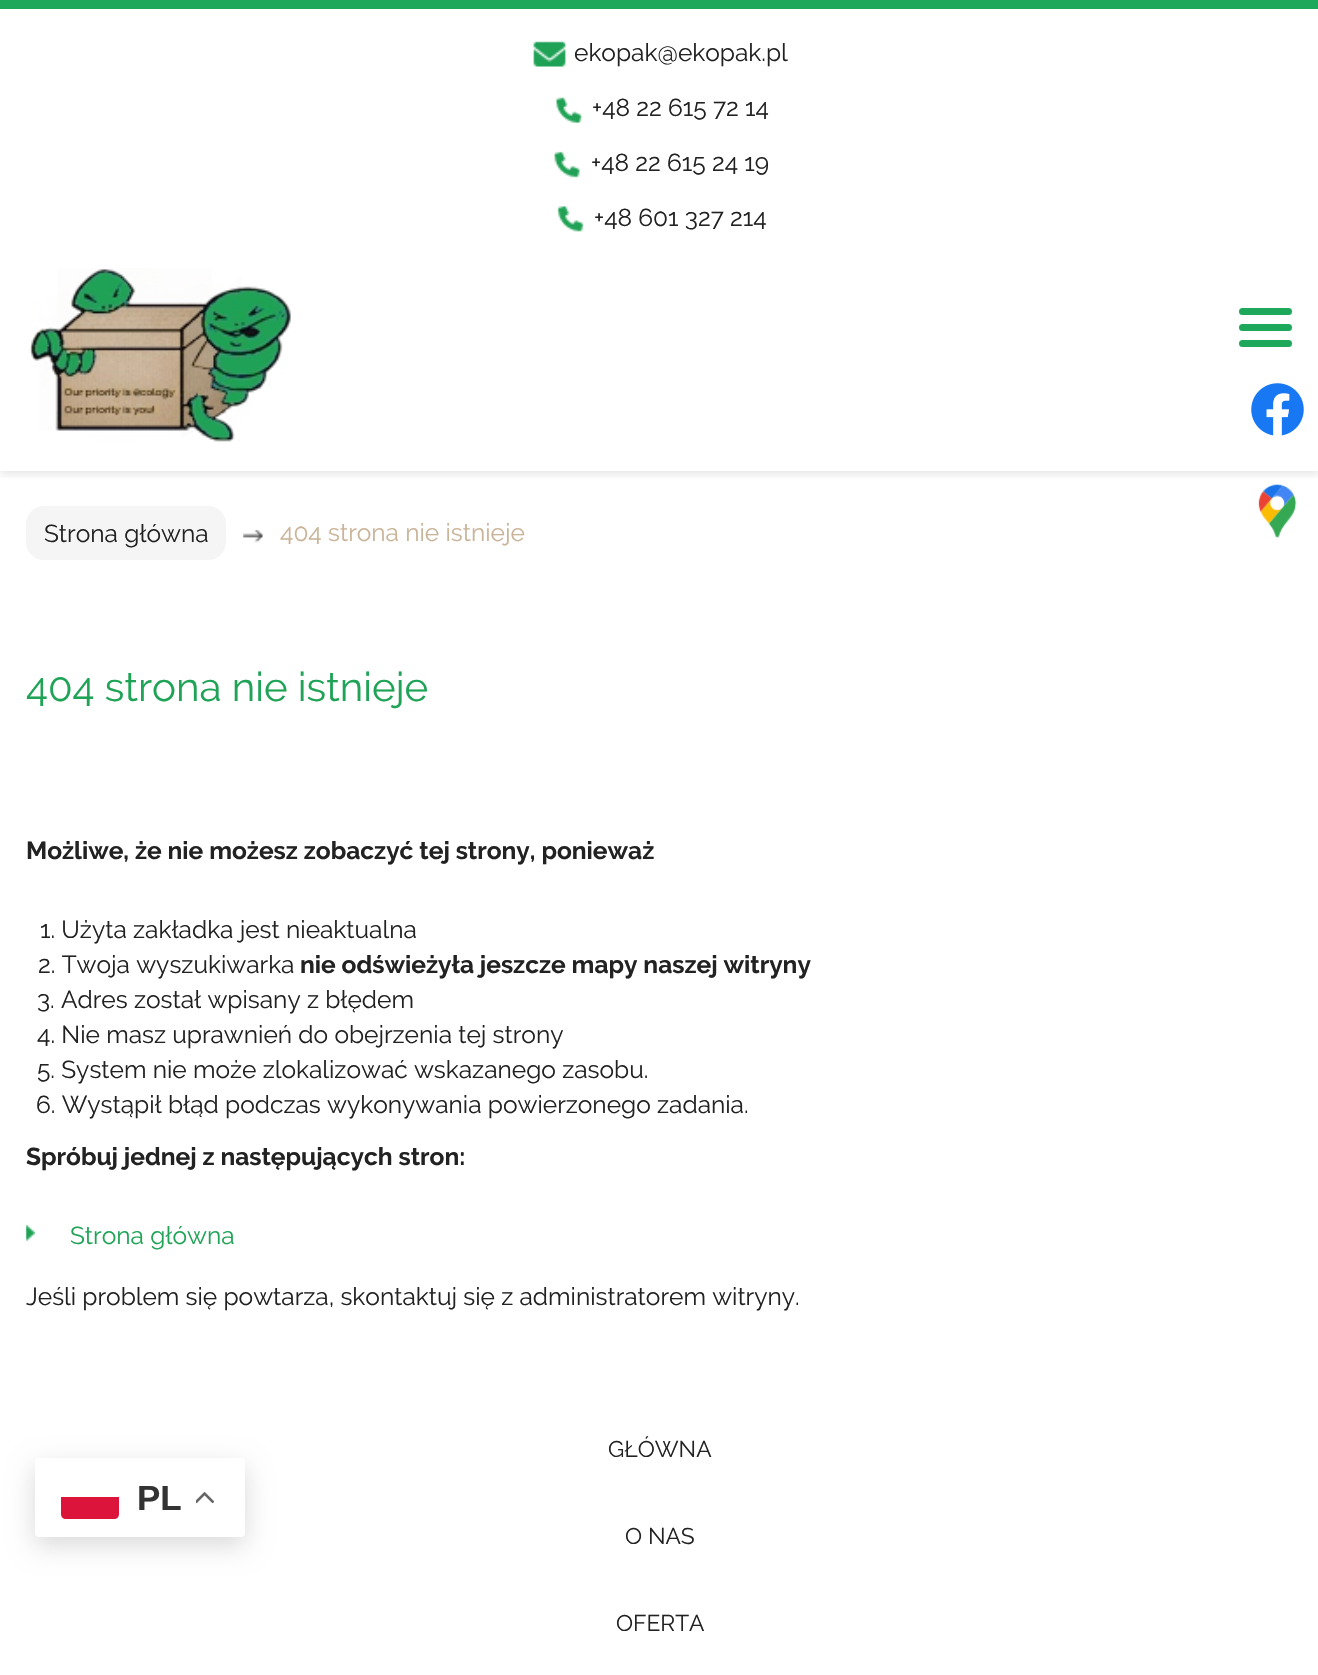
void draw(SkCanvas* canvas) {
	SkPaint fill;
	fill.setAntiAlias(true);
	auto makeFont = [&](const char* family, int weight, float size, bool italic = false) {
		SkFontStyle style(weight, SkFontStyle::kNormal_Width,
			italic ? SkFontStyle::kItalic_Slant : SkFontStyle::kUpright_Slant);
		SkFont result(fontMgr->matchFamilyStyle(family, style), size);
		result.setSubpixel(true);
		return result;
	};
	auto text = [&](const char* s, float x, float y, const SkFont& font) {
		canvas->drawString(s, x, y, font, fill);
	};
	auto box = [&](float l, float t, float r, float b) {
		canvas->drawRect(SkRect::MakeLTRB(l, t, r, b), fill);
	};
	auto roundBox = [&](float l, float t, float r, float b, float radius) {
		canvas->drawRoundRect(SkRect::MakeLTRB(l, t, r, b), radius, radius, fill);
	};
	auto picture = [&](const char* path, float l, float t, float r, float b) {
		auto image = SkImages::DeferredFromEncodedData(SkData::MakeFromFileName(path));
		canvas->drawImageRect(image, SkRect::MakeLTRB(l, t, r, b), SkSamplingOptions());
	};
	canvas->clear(0xFFFFFFFF);
	fill.setColor(0xFF1EA85C);
	box(0, 0, 1318, 9);
	canvas->save();
	canvas->clipRect(SkRect::MakeLTRB(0, 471, 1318, 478));
	fill.setColor(0x1A000000);
	fill.setMaskFilter(SkMaskFilter::MakeBlur(kNormal_SkBlurStyle, 4.5f));
	canvas->drawRect(SkRect::MakeLTRB(0, 12, 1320, 474), fill);
	fill.setMaskFilter(nullptr);
	canvas->restore();
	fill.setColor(0xF2FFFFFF);
	box(1, 470, 1318, 471);
	picture("image0.png", 533, 41, 566, 67);
	picture("image1.png", 556, 97, 582, 123);
	picture("image2.png", 554, 151, 580, 178);
	picture("image3.png", 557, 206, 584, 232);
	picture("image4.png", 29, 268, 291, 442);
	fill.setColor(0xFF1EA85C);
	roundBox(1239, 308, 1292, 315, 3.5f);
	roundBox(1239, 324, 1292, 331, 3.5f);
	roundBox(1239, 340, 1292, 347, 3.5f);
	fill.setColor(0xFFF5F5F5);
	roundBox(26, 506, 226, 560, 18);
	picture("image5.png", 243, 529, 263, 543);
	picture("image6.png", 26, 1225, 35, 1241);
	picture("image7.png", 1251, 383, 1304, 436);
	picture("image8.png", 1258, 484, 1297, 538);
	fill.setColor(0x26000000);
	fill.setMaskFilter(SkMaskFilter::MakeBlur(kNormal_SkBlurStyle, 13));
	canvas->drawRoundRect(SkRect::MakeLTRB(35, 1467, 245, 1545), 4, 4, fill);
	fill.setMaskFilter(nullptr);
	fill.setColor(0xFFFFFFFF);
	roundBox(35, 1458, 245, 1537, 4);
	fill.setColor(0xFFDC143C);
	canvas->drawPath(SkPathBuilder().moveTo(61, 1497).lineTo(119, 1497).lineTo(119, 1514).cubicTo(119, 1517, 117, 1519, 114, 1519).lineTo(66, 1519).cubicTo(63, 1519, 61, 1517, 61, 1514).close().detach(), fill);
	picture("image9.png", 196, 1492, 215, 1504);
	auto font1 = makeFont("Raleway", 400, 24.5f);
	fill.setColor(0xFF222222);
	text("ekopak@ekopak.pl", 574, 61, font1);
	text("+48 22 615 72 14", 592, 116, font1);
	text("+48 22 615 24 19", 591, 171, font1);
	text("+48 601 327 214", 594, 226, font1);
	text("Strona główna", 44, 542, font1);
	fill.setColor(0xFFCAB499);
	text("404 strona nie istnieje", 280, 541, font1);
	auto font2 = makeFont("Raleway", 400, 40.25f);
	fill.setColor(0xFF1FA356);
	text("404 strona nie istnieje", 26, 701, font2);
	auto font3 = makeFont("Raleway", 700, 24.5f);
	fill.setColor(0xFF222222);
	text("Możliwe, że nie możesz zobaczyć tej strony, ponieważ", 26, 859, font3);
	text("1. Użyta zakładka jest nieaktualna", 40, 938, font1);
	text("2. Twoja wyszukiwarka", 38, 973, font1);
	text("nie odświeżyła jeszcze mapy naszej witryny", 300, 973, font3);
	text("3. Adres został wpisany z błędem", 37, 1008, font1);
	text("4. Nie masz uprawnień do obejrzenia tej strony", 37, 1043, font1);
	text("5. System nie może zlokalizować wskazanego zasobu.", 37, 1078, font1);
	text("6. Wystąpił błąd podczas wykonywania powierzonego zadania.", 36, 1113, font1);
	text("Spróbuj jednej z następujących stron:", 26, 1165, font3);
	fill.setColor(0xFF1FA356);
	text("Strona główna", 70, 1244, font1);
	fill.setColor(0xFF222222);
	text("Jeśli problem się powtarza, skontaktuj się z administratorem witryny.", 26, 1305, font1);
	auto font4 = makeFont("Liberation Sans", 700, 35);
	fill.setColor(0xFF333333);
	text("PL", 137, 1510, font4);
	auto font5 = makeFont("Raleway", 400, 22.75f);
	fill.setColor(0xFF222222);
	text("GŁÓWNA", 608, 1457, font5);
	text("O NAS", 625, 1544, font5);
	text("OFERTA", 616, 1631, font5);
}
